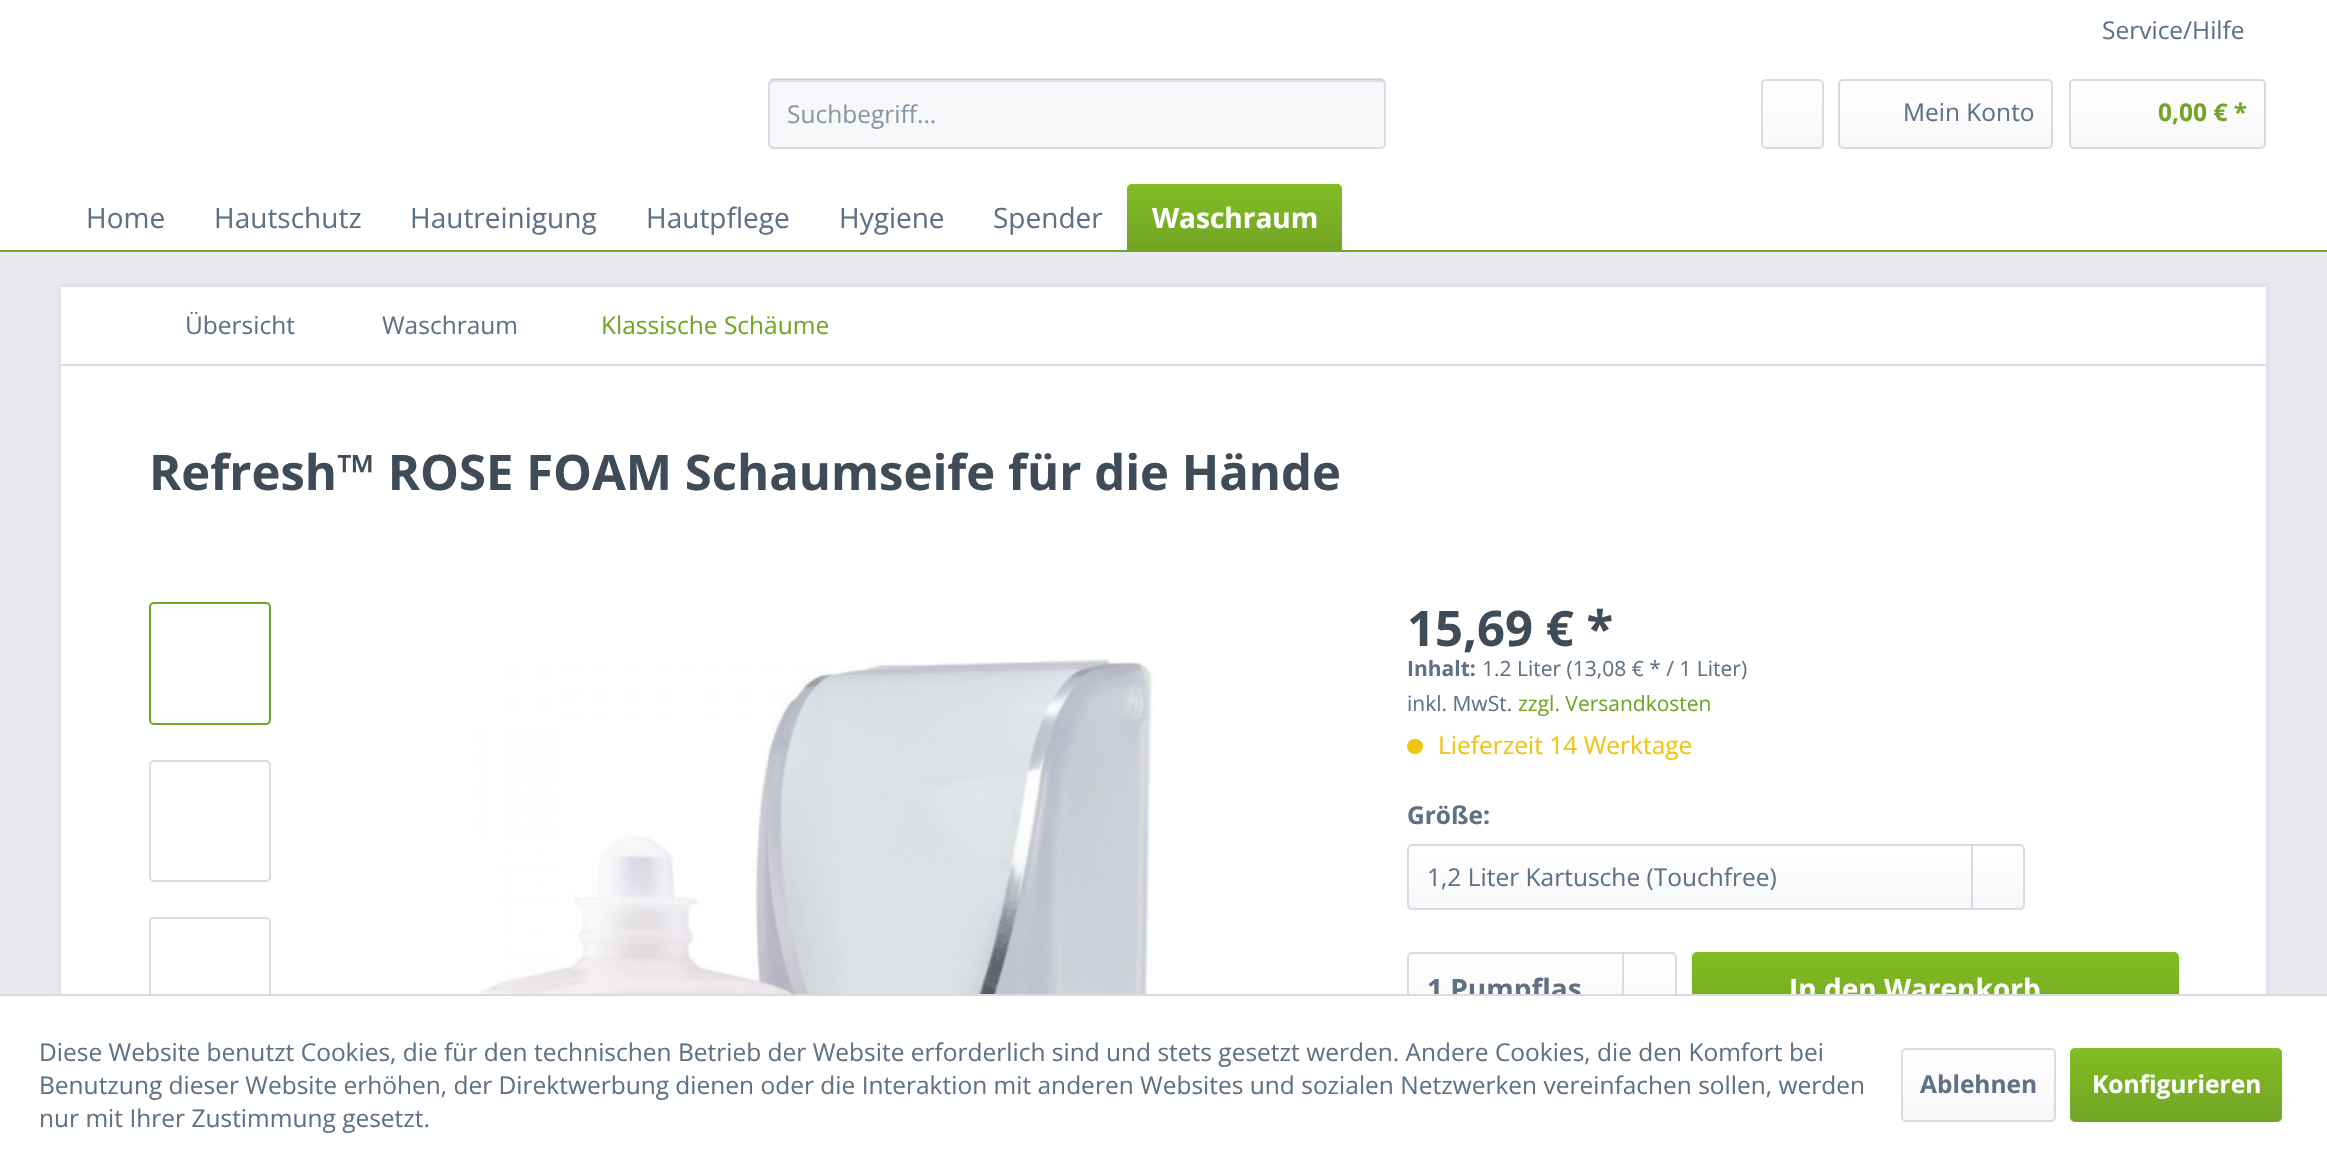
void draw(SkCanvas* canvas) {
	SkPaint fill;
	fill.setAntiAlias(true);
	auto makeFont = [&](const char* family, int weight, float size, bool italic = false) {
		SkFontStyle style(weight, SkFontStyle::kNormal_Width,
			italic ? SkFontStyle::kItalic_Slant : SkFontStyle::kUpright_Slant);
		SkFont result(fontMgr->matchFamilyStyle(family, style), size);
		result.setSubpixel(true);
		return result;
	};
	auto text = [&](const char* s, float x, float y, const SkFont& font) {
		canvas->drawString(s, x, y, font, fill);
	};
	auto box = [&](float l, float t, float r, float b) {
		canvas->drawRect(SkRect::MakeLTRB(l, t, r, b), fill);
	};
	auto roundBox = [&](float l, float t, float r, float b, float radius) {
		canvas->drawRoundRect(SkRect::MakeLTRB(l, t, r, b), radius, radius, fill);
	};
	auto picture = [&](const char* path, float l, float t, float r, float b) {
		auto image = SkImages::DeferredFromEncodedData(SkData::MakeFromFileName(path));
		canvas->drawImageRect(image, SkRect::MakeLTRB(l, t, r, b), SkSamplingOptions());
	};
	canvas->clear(0xFFE9E9F0);
	fill.setColor(0xFFFFFFFF);
	box(0, 0, 2327, 250);
	fill.setColor(0xFFF8F8FA);
	roundBox(768, 79, 1386, 149, 5);
	fill.setColor(0xFFDADAE5);
	canvas->drawPath(SkPathBuilder().moveTo(774, 82).lineTo(1381, 82).cubicTo(1383, 82, 1384, 84, 1384, 86).lineTo(1384, 85).cubicTo(1384, 83, 1382, 81, 1380, 81).lineTo(774, 81).cubicTo(772, 81, 770, 83, 770, 85).lineTo(770, 86).cubicTo(770, 84, 772, 82, 774, 82).close().detach(), fill);
	fill.setStyle(SkPaint::kStroke_Style);
	fill.setStrokeWidth(1.8f);
	fill.setColor(0xFFCBCBDB);
	canvas->drawPath(SkPathBuilder().moveTo(770.5f, 81).cubicTo(771, 80, 772.5f, 79.5f, 773.5f, 79.5f).lineTo(1381, 79.5f).cubicTo(1382, 79.5f, 1383, 80, 1384, 81).detach(), fill);
	fill.setColor(0xFFDADAE5);
	canvas->drawPath(SkPathBuilder().moveTo(1384, 81).cubicTo(1384.5f, 81.5f, 1385, 83, 1385, 84).lineTo(1385, 143.5f).cubicTo(1385, 144.5f, 1384.5f, 146, 1384, 146.5f).cubicTo(1383, 147.5f, 1382, 148, 1381, 148).lineTo(773.5f, 148).cubicTo(772.5f, 148, 771, 147.5f, 770.5f, 146.5f).cubicTo(769.5f, 146, 769, 144.5f, 769, 143.5f).lineTo(769, 84).cubicTo(769, 83, 769.5f, 81.5f, 770.5f, 81).detach(), fill);
	fill.setStyle(SkPaint::kFill_Style);
	{
		const SkColor colors[] = {0xFFFFFFFF, 0xFFF8F8FA};
		const float stops[] = {0, 1};
		const SkPoint ends[] = {{1792, 81}, {1792, 147}};
		fill.setShader(SkGradientShader::MakeLinear(ends, colors, stops, 2, SkTileMode::kClamp));
		fill.setAlpha(255);
	}
	roundBox(1762, 81, 1822, 147, 4);
	fill.setStyle(SkPaint::kStroke_Style);
	fill.setStrokeWidth(2);
	fill.setShader(nullptr);
	fill.setColor(0xFFDADAE5);
	canvas->drawRoundRect(SkRect::MakeLTRB(1762, 80, 1823, 148), 4, 4, fill);
	fill.setStyle(SkPaint::kFill_Style);
	{
		const SkColor colors[] = {0xFFFFFFFF, 0xFFF8F8FA};
		const float stops[] = {0, 1};
		const SkPoint ends[] = {{1945, 80}, {1945, 147}};
		fill.setShader(SkGradientShader::MakeLinear(ends, colors, stops, 2, SkTileMode::kClamp));
		fill.setAlpha(255);
	}
	roundBox(1839, 81, 2051, 147, 4);
	fill.setStyle(SkPaint::kStroke_Style);
	fill.setShader(nullptr);
	fill.setColor(0xFFDADAE5);
	canvas->drawRoundRect(SkRect::MakeLTRB(1839, 80, 2052, 148), 4, 4, fill);
	fill.setStyle(SkPaint::kFill_Style);
	{
		const SkColor colors[] = {0xFFFFFFFF, 0xFFF8F8FA};
		const float stops[] = {0, 1};
		const SkPoint ends[] = {{2167, 80}, {2167, 147}};
		fill.setShader(SkGradientShader::MakeLinear(ends, colors, stops, 2, SkTileMode::kClamp));
		fill.setAlpha(255);
	}
	roundBox(2070, 81, 2265, 147, 4);
	fill.setStyle(SkPaint::kStroke_Style);
	fill.setShader(nullptr);
	fill.setColor(0xFFDADAE5);
	canvas->drawRoundRect(SkRect::MakeLTRB(2070, 80, 2265, 148), 4, 4, fill);
	fill.setStyle(SkPaint::kFill_Style);
	fill.setColor(0xFF72A425);
	box(0, 250, 2327, 252);
	{
		const SkColor colors[] = {0xFF82BE24, 0xFF72A425};
		const float stops[] = {0, 1};
		const SkPoint ends[] = {{1235, 184}, {1235, 250}};
		fill.setShader(SkGradientShader::MakeLinear(ends, colors, stops, 2, SkTileMode::kClamp));
		fill.setAlpha(255);
	}
	canvas->drawPath(SkPathBuilder().moveTo(1132, 184).lineTo(1337, 184).cubicTo(1340, 184, 1342, 186, 1342, 189).lineTo(1342, 250).lineTo(1127, 250).lineTo(1127, 189).cubicTo(1127, 186, 1129, 184, 1132, 184).close().detach(), fill);
	fill.setShader(nullptr);
	fill.setColor(0xFFDADAE5);
	fill.setMaskFilter(SkMaskFilter::MakeBlur(kNormal_SkBlurStyle, 3.5f));
	canvas->drawRect(SkRect::MakeLTRB(60, 285, 2268, 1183), fill);
	fill.setMaskFilter(nullptr);
	fill.setColor(0xFFFFFFFF);
	box(61, 287, 2266, 994);
	fill.setColor(0xFFDADAE5);
	box(61, 364, 2266, 366);
	fill.setStyle(SkPaint::kStroke_Style);
	fill.setColor(0xFF72A425);
	canvas->drawRoundRect(SkRect::MakeLTRB(150, 603, 270, 724), 4, 4, fill);
	fill.setColor(0xFFDADAE5);
	canvas->drawRoundRect(SkRect::MakeLTRB(150, 761, 270, 881), 4, 4, fill);
	canvas->drawRoundRect(SkRect::MakeLTRB(150, 918, 270, 1039), 4, 4, fill);
	picture("image0.png", 470, 658, 1155, 994);
	fill.setStyle(SkPaint::kFill_Style);
	fill.setColor(0xFFF1C40F);
	roundBox(1407, 739, 1423, 754, 7.5f);
	{
		const SkColor colors[] = {0xFFFFFFFF, 0xFFF8F8FA};
		const float stops[] = {0, 1};
		const SkPoint ends[] = {{1716, 845}, {1716, 908}};
		fill.setShader(SkGradientShader::MakeLinear(ends, colors, stops, 2, SkTileMode::kClamp));
		fill.setAlpha(255);
	}
	roundBox(1409, 845, 2023, 908, 4);
	fill.setStyle(SkPaint::kStroke_Style);
	fill.setShader(nullptr);
	fill.setColor(0xFFDADAE5);
	canvas->drawRoundRect(SkRect::MakeLTRB(1408, 845, 2024, 909), 4, 4, fill);
	fill.setStyle(SkPaint::kFill_Style);
	box(1971, 845, 1973, 908);
	{
		const SkColor colors[] = {0xFFFFFFFF, 0xFFF8F8FA};
		const float stops[] = {0, 1};
		const SkPoint ends[] = {{1542, 954}, {1542, 1024}};
		fill.setShader(SkGradientShader::MakeLinear(ends, colors, stops, 2, SkTileMode::kClamp));
		fill.setAlpha(255);
	}
	roundBox(1409, 954, 1675, 1024, 4);
	fill.setStyle(SkPaint::kStroke_Style);
	fill.setShader(nullptr);
	fill.setColor(0xFFDADAE5);
	canvas->drawRoundRect(SkRect::MakeLTRB(1408, 953, 1676, 1025), 4, 4, fill);
	fill.setStyle(SkPaint::kFill_Style);
	box(1622, 954, 1624, 994);
	{
		const SkColor colors[] = {0xFF82BE24, 0xFF72A425};
		const float stops[] = {0, 1};
		const SkPoint ends[] = {{1936, 952}, {1936, 1026}};
		fill.setShader(SkGradientShader::MakeLinear(ends, colors, stops, 2, SkTileMode::kClamp));
		fill.setAlpha(255);
	}
	roundBox(1692, 952, 2179, 1026, 5);
	auto font1 = makeFont("Open Sans", 400, 24.5f);
	fill.setShader(nullptr);
	fill.setColor(0xFF5F7285);
	text("Service/Hilfe", 2102, 39, font1);
	fill.setColor(0xFF8798A9);
	text("Suchbegriff...", 787, 123, font1);
	fill.setColor(0xFF5F7285);
	text("Mein Konto", 1903, 121, font1);
	auto font2 = makeFont("Open Sans", 700, 24.5f);
	fill.setColor(0xFF72A425);
	text("0,00 € *", 2158, 121, font2);
	auto font3 = makeFont("Open Sans", 400, 28);
	fill.setColor(0xFF5F7285);
	text("Home", 86, 228, font3);
	text("Hautschutz", 214, 228, font3);
	text("Hautreinigung", 410, 228, font3);
	text("Hautpflege", 646, 228, font3);
	text("Hygiene", 839, 228, font3);
	text("Spender", 993, 228, font3);
	auto font4 = makeFont("Open Sans", 700, 28);
	fill.setColor(0xFFFFFFFF);
	text("Waschraum", 1152, 228, font4);
	fill.setColor(0xFF5F7285);
	text("Übersicht", 185, 334, font1);
	text("Waschraum", 382, 334, font1);
	fill.setColor(0xFF72A425);
	text("Klassische Schäume", 601, 334, font1);
	auto font5 = makeFont("Open Sans", 700, 49);
	fill.setColor(0xFF3F4C58);
	text("Refresh™ ROSE FOAM Schaumseife für die Hände", 149, 490, font5);
	text("15,69 € *", 1407, 646, font5);
	auto font6 = makeFont("Open Sans", 700, 21);
	fill.setColor(0xFF5F7285);
	text("Inhalt:", 1407, 676, font6);
	auto font7 = makeFont("Open Sans", 400, 21);
	text("1.2 Liter (13,08 € * / 1 Liter)", 1482, 676, font7);
	text("inkl. MwSt.", 1407, 711, font7);
	fill.setColor(0xFF72A425);
	text("zzgl. Versandkosten", 1518, 711, font7);
	fill.setColor(0xFFF1C40F);
	text("Lieferzeit 14 Werktage", 1438, 754, font1);
	fill.setColor(0xFF5F7285);
	text("Größe:", 1407, 824, font2);
	text("1,2 Liter Kartusche (Touchfree)", 1427, 886, font1);
	text("1 Pumpflas", 1427, 999, font4);
	fill.setColor(0xFFFFFFFF);
	text("In den Warenkorb", 1789, 999, font4);
	box(0, 996, 2327, 1172);
	fill.setColor(0xFFDADAE5);
	box(0, 994, 2327, 996);
	fill.setColor(0xFF5F7285);
	text("Diese Website benutzt Cookies, die für den technischen Betrieb der Website erforderlich sind und stets gesetzt werden. Andere Cookies, die den Komfort bei", 39, 1061, font1);
	text("Benutzung dieser Website erhöhen, der Direktwerbung dienen oder die Interaktion mit anderen Websites und sozialen Netzwerken vereinfachen sollen, werden", 39, 1094, font1);
	text("nur mit Ihrer Zustimmung gesetzt.", 39, 1127, font1);
	{
		const SkColor colors[] = {0xFFFFFFFF, 0xFFF8F8FA};
		const float stops[] = {0, 1};
		const SkPoint ends[] = {{1978, 1050}, {1978, 1120}};
		fill.setShader(SkGradientShader::MakeLinear(ends, colors, stops, 2, SkTileMode::kClamp));
		fill.setAlpha(255);
	}
	roundBox(1902, 1050, 2055, 1120, 4);
	fill.setStyle(SkPaint::kStroke_Style);
	fill.setShader(nullptr);
	fill.setColor(0xFFDADAE5);
	canvas->drawRoundRect(SkRect::MakeLTRB(1902, 1049, 2055, 1121), 4, 4, fill);
	fill.setStyle(SkPaint::kFill_Style);
	fill.setColor(0xFF5F7285);
	text("Ablehnen", 1920, 1093, font2);
	{
		const SkColor colors[] = {0xFF82BE24, 0xFF72A425};
		const float stops[] = {0, 1};
		const SkPoint ends[] = {{2176, 1048}, {2176, 1122}};
		fill.setShader(SkGradientShader::MakeLinear(ends, colors, stops, 2, SkTileMode::kClamp));
		fill.setAlpha(255);
	}
	roundBox(2070, 1048, 2282, 1122, 5);
	fill.setShader(nullptr);
	fill.setColor(0xFFFFFFFF);
	text("Konfigurieren", 2092, 1093, font2);
}
